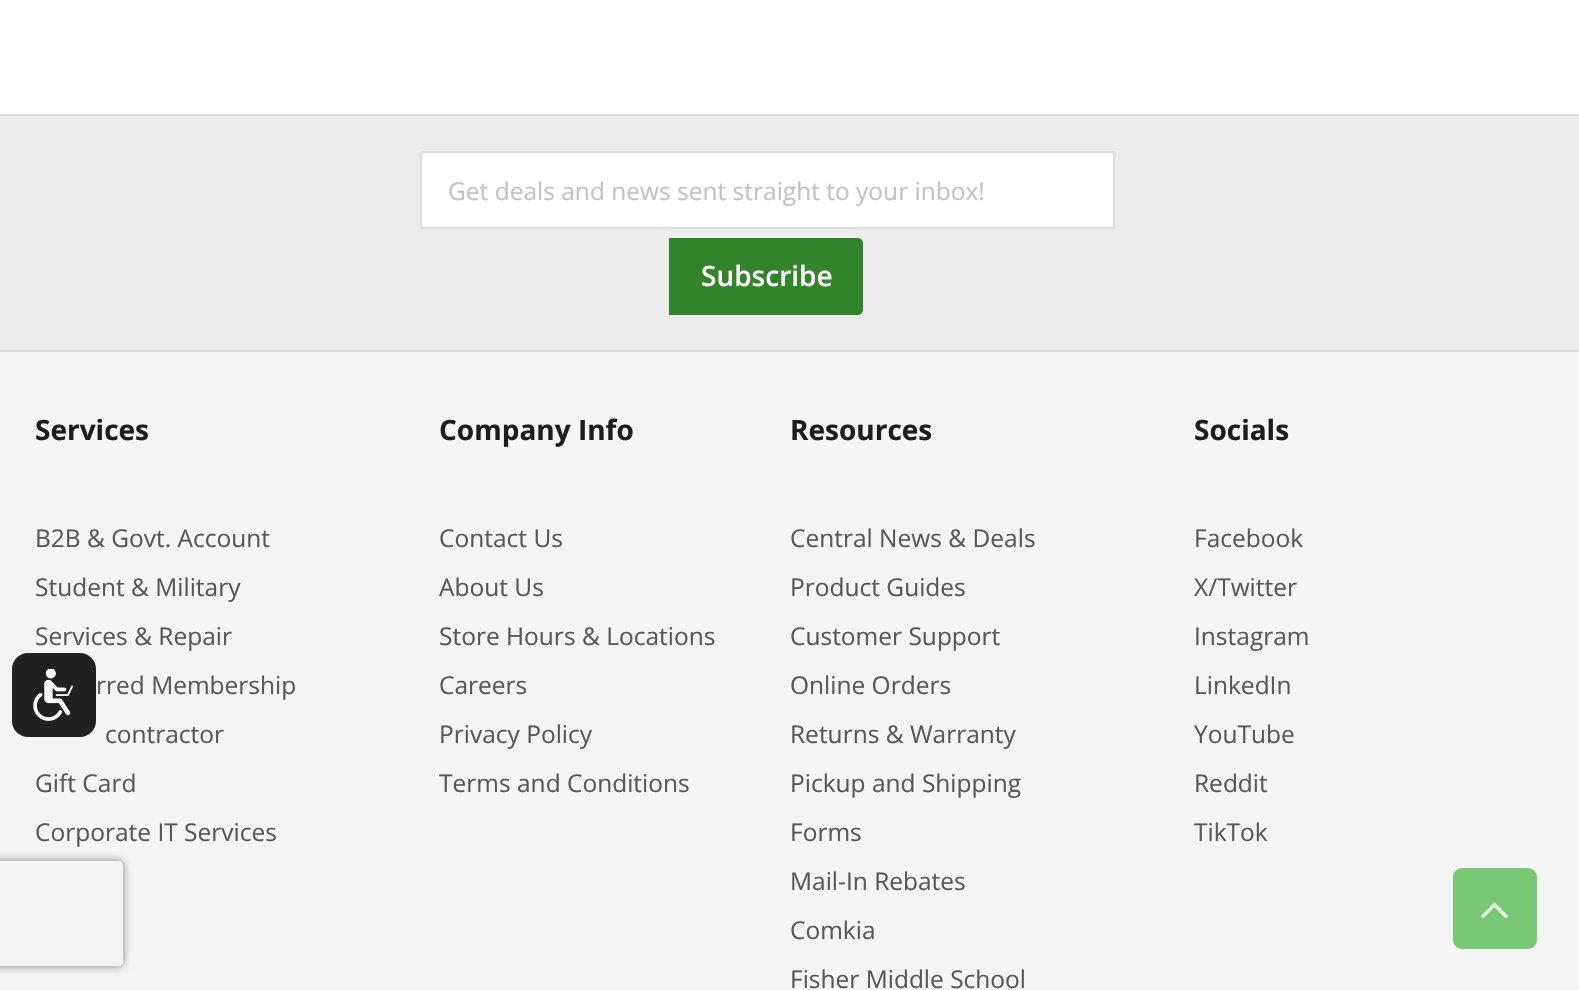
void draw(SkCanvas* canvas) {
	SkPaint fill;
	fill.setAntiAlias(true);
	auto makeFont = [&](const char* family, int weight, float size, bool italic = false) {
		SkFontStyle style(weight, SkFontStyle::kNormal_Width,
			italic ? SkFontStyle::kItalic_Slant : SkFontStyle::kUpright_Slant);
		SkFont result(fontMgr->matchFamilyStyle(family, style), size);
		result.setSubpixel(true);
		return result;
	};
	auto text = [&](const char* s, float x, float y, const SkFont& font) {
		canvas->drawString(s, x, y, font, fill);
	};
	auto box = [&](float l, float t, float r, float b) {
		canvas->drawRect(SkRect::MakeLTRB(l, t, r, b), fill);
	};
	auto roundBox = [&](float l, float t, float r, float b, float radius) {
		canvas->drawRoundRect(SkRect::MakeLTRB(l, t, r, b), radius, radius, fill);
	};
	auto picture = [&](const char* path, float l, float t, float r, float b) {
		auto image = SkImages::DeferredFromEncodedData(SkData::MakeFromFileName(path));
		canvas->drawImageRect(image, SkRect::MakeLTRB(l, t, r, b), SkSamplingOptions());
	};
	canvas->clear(0xFFFFFFFF);
	fill.setColor(0xFFF4F4F4);
	box(0, 352, 1579, 990);
	fill.setColor(0xFFECECEC);
	box(0, 116, 1579, 350);
	fill.setColor(0xFFDDDDDD);
	box(0, 114, 1579, 116);
	box(0, 350, 1579, 352);
	fill.setColor(0xFFFFFFFF);
	canvas->drawPath(SkPathBuilder().moveTo(424, 152).lineTo(1114, 152).lineTo(1114, 228).lineTo(424, 228).cubicTo(422.5f, 228, 421, 226.5f, 421, 225).lineTo(421, 155).cubicTo(421, 153.5f, 422.5f, 152, 424, 152).close().detach(), fill);
	fill.setStyle(SkPaint::kStroke_Style);
	fill.setStrokeWidth(2);
	fill.setColor(0xFFDDDDDD);
	canvas->drawPath(SkPathBuilder().moveTo(424, 152).lineTo(1114, 152).lineTo(1114, 228).lineTo(424, 228).cubicTo(422.5f, 228, 421, 226.5f, 421, 225).lineTo(421, 155).cubicTo(421, 153.5f, 422.5f, 152, 424, 152).close().detach(), fill);
	fill.setStyle(SkPaint::kFill_Style);
	fill.setColor(0xFF31842A);
	canvas->drawPath(SkPathBuilder().moveTo(670, 239).lineTo(858, 239).cubicTo(860, 239, 862, 241, 862, 243).lineTo(862, 310).cubicTo(862, 312, 860, 314, 858, 314).lineTo(670, 314).close().detach(), fill);
	fill.setStyle(SkPaint::kStroke_Style);
	canvas->drawPath(SkPathBuilder().moveTo(670, 239).lineTo(858, 239).cubicTo(860, 239, 862, 241, 862, 243).lineTo(862, 310).cubicTo(862, 312, 860, 314, 858, 314).lineTo(670, 314).close().detach(), fill);
	fill.setStyle(SkPaint::kFill_Style);
	fill.setColor(0xFF212121);
	roundBox(12, 653, 96, 737, 16);
	picture("image0.png", 33, 669, 73, 721);
	canvas->save();
	canvas->clipPath(SkPathBuilder(SkPathFillType::kEvenOdd).moveTo(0, 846).lineTo(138, 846).lineTo(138, 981).lineTo(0, 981).close().moveTo(-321, 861).lineTo(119, 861).cubicTo(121, 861, 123, 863, 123, 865).lineTo(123, 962).cubicTo(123, 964, 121, 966, 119, 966).lineTo(-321, 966).cubicTo(-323, 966, -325, 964, -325, 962).lineTo(-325, 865).cubicTo(-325, 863, -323, 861, -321, 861).close().detach(), true);
	fill.setColor(0xFF808080);
	fill.setMaskFilter(SkMaskFilter::MakeBlur(kNormal_SkBlurStyle, 4.5f));
	canvas->drawRoundRect(SkRect::MakeLTRB(-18, 861, 123, 966), 4, 4, fill);
	fill.setMaskFilter(nullptr);
	canvas->restore();
	fill.setColor(0xFF77C774);
	roundBox(1453, 868, 1537, 949, 9);
	picture("image1.png", 1480, 902, 1509, 919);
	auto font1 = makeFont("Open Sans", 400, 24.5f);
	fill.setColor(0xFFC2C2C2);
	text("Get deals and news sent straight to your inbox!", 448, 200, font1);
	auto font2 = makeFont("Open Sans", 600, 28);
	fill.setColor(0xFFFFFFFF);
	text("Subscribe", 701, 286, font2);
	auto font3 = makeFont("Open Sans", 700, 28);
	fill.setColor(0xFF1D1D1D);
	text("Services", 35, 440, font3);
	fill.setColor(0xFF575757);
	text("B2B & Govt. Account", 35, 547, font1);
	text("Student & Military", 35, 596, font1);
	text("Services & Repair", 35, 645, font1);
	text("rred Membership", 96, 694, font1);
	text("contractor", 105, 743, font1);
	text("Gift Card", 35, 792, font1);
	text("Corporate IT Services", 35, 841, font1);
	fill.setColor(0xFF1D1D1D);
	text("Company Info", 439, 440, font3);
	fill.setColor(0xFF575757);
	text("Contact Us", 439, 547, font1);
	text("About Us", 439, 596, font1);
	text("Store Hours & Locations", 439, 645, font1);
	text("Careers", 439, 694, font1);
	text("Privacy Policy", 439, 743, font1);
	text("Terms and Conditions", 439, 792, font1);
	fill.setColor(0xFF1D1D1D);
	text("Resources", 790, 440, font3);
	fill.setColor(0xFF575757);
	text("Central News & Deals", 790, 547, font1);
	text("Product Guides", 790, 596, font1);
	text("Customer Support", 790, 645, font1);
	text("Online Orders", 790, 694, font1);
	text("Returns & Warranty", 790, 743, font1);
	text("Pickup and Shipping", 790, 792, font1);
	text("Forms", 790, 841, font1);
	text("Mail-In Rebates", 790, 890, font1);
	text("Comkia", 790, 939, font1);
	text("Fisher Middle School", 790, 988, font1);
	fill.setColor(0xFF1D1D1D);
	text("Socials", 1194, 440, font3);
	fill.setColor(0xFF575757);
	text("Facebook", 1194, 547, font1);
	text("X/Twitter", 1194, 596, font1);
	text("Instagram", 1194, 645, font1);
	text("LinkedIn", 1194, 694, font1);
	text("YouTube", 1194, 743, font1);
	text("Reddit", 1194, 792, font1);
	text("TikTok", 1194, 841, font1);
}
